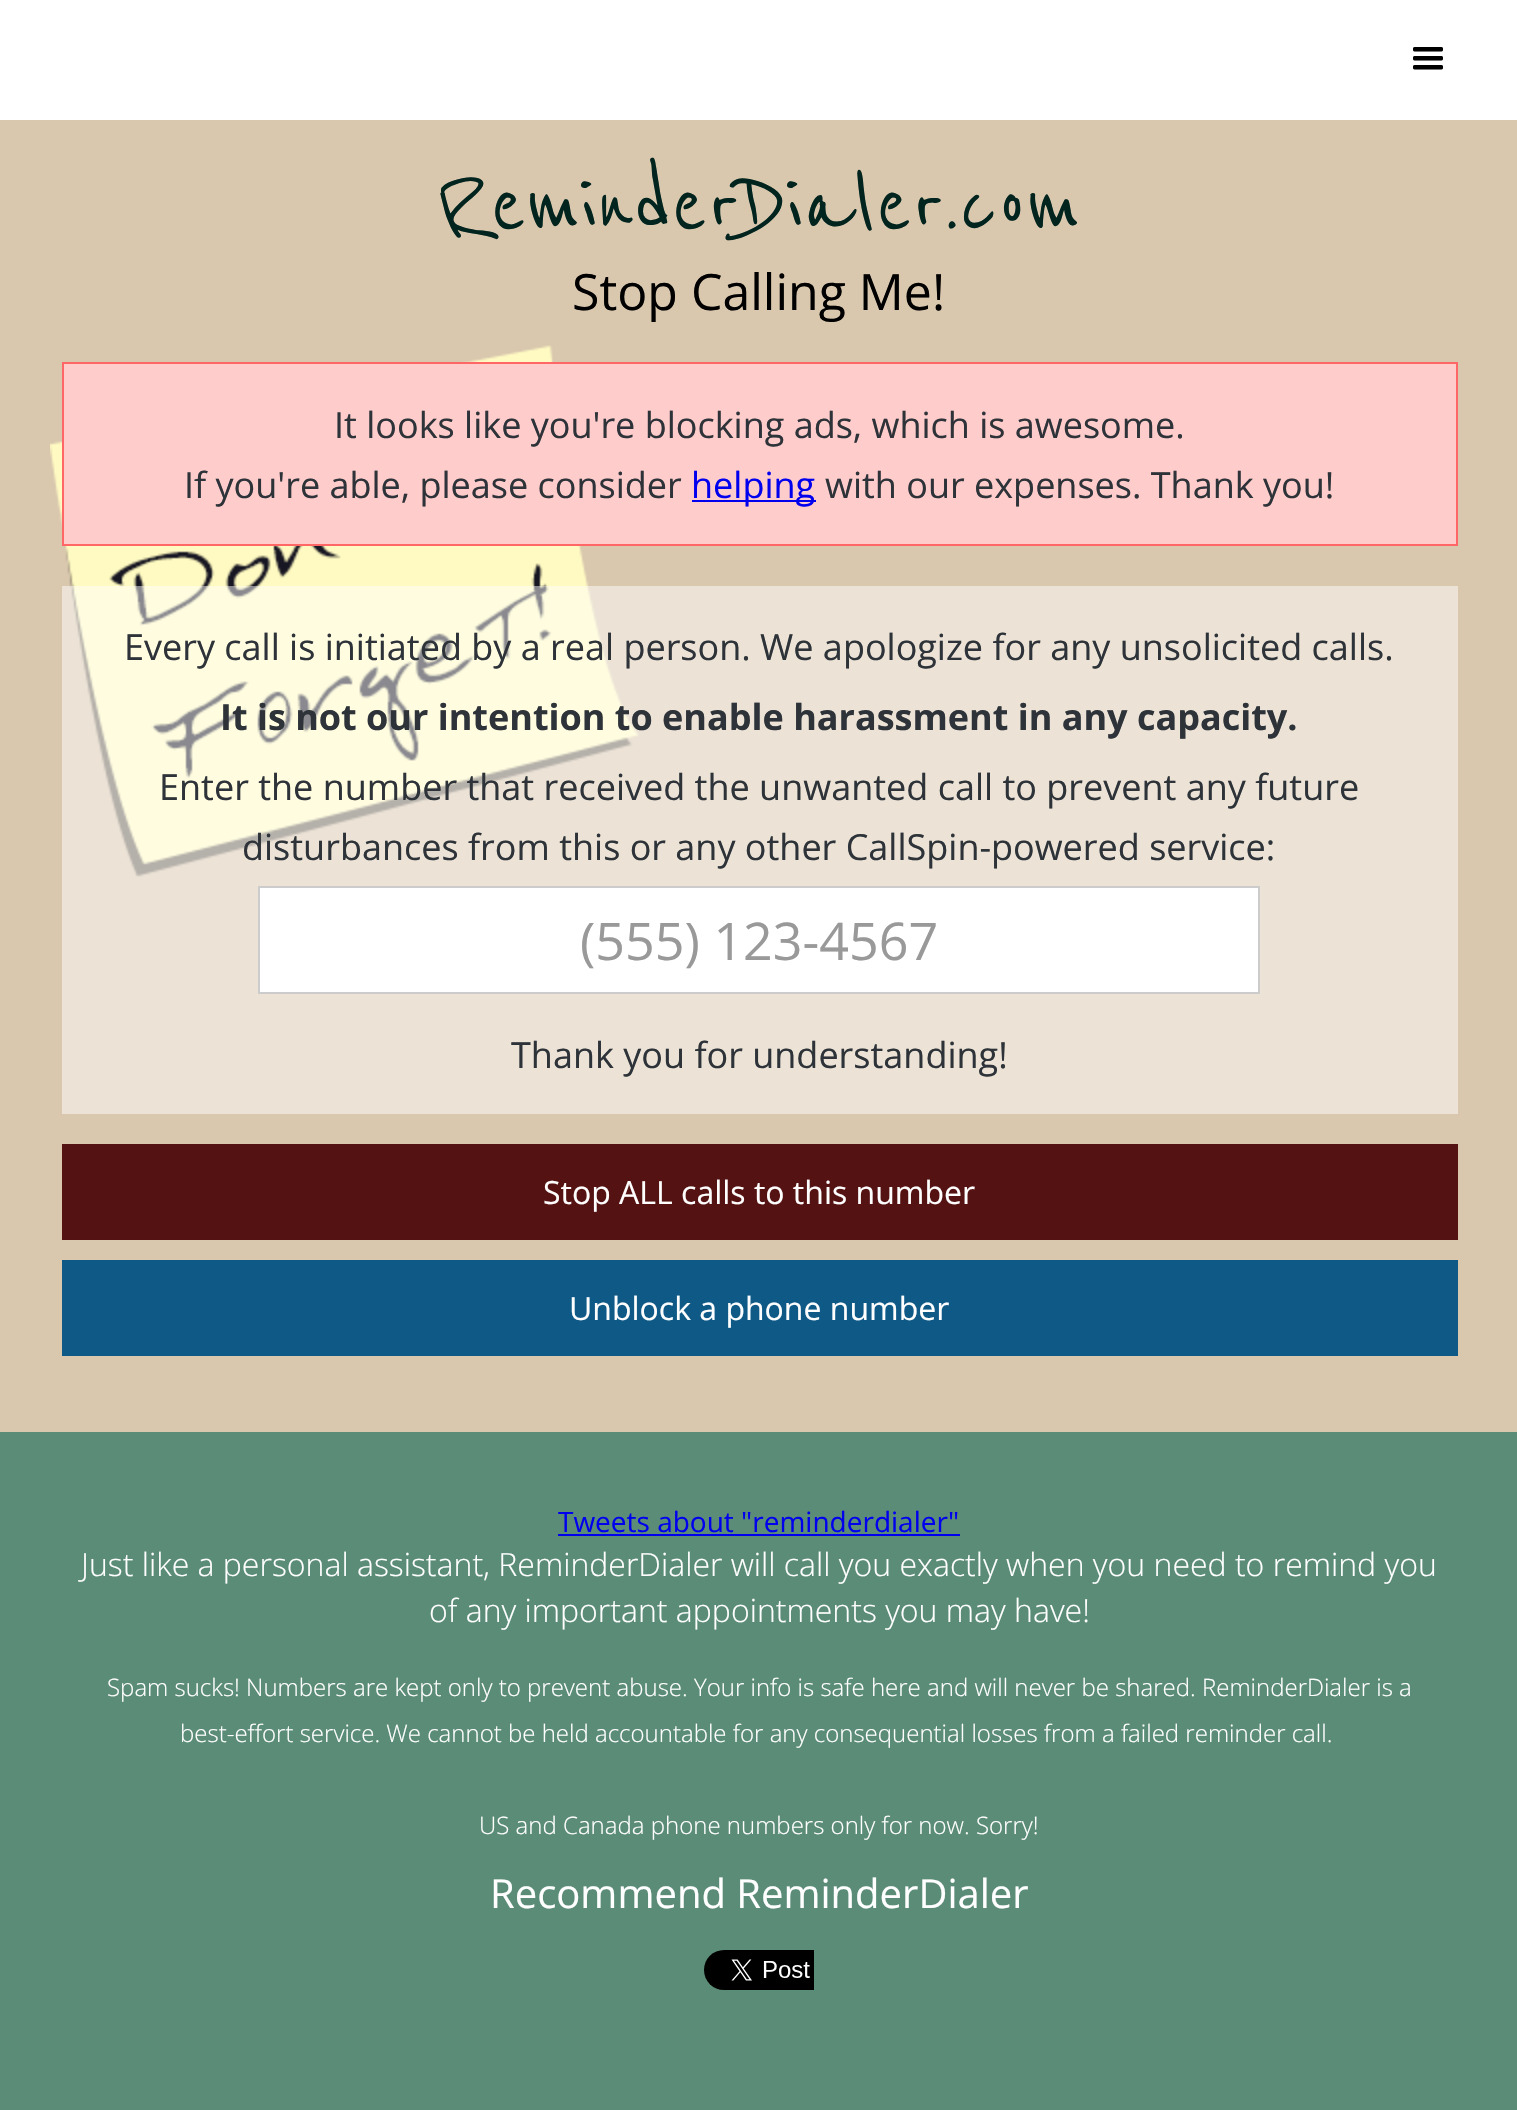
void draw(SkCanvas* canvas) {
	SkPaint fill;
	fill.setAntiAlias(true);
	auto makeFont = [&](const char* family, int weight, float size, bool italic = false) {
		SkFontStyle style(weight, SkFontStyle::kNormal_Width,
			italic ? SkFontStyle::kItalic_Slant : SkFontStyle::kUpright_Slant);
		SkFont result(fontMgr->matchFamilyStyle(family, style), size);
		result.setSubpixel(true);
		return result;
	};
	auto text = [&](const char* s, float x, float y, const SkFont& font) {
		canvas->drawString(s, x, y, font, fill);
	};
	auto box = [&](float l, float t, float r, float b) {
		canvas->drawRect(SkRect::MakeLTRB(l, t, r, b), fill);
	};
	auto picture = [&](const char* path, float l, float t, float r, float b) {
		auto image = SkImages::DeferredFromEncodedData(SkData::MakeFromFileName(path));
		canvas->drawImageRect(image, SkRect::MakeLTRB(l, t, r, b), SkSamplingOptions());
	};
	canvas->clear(0xFFD9C7AE);
	fill.setColor(0xFFFFFFFF);
	box(0, 0, 1517, 120);
	picture("image0.png", 1413, 47, 1443, 70);
	picture("image1.png", 50, 345, 639, 877);
	fill.setColor(0xFFFFCCCC);
	canvas->drawRect(SkRect::MakeLTRB(63, 363, 1457, 545), fill);
	fill.setStyle(SkPaint::kStroke_Style);
	fill.setStrokeWidth(2);
	fill.setColor(0xFFFF6666);
	canvas->drawRect(SkRect::MakeLTRB(63, 363, 1457, 545), fill);
	fill.setStyle(SkPaint::kFill_Style);
	fill.setColor(0xFF0000EE);
	box(692, 500, 816, 502);
	fill.setColor(0x7DFFFFFF);
	box(62, 586, 1458, 1114);
	fill.setColor(0xFFFFFFFF);
	canvas->drawRect(SkRect::MakeLTRB(259, 887, 1259, 993), fill);
	fill.setStyle(SkPaint::kStroke_Style);
	fill.setColor(0xFFCCCCCC);
	canvas->drawRect(SkRect::MakeLTRB(259, 887, 1259, 993), fill);
	fill.setStyle(SkPaint::kFill_Style);
	fill.setColor(0xFF541212);
	box(62, 1144, 1458, 1240);
	fill.setColor(0xFF0F5987);
	box(62, 1260, 1458, 1356);
	fill.setColor(0xFF5B8C77);
	box(0, 1432, 1517, 2110);
	fill.setColor(0xFF0000EE);
	box(558, 1534, 960, 1536);
	picture("image2.png", 704, 1950, 814, 1990);
	auto font1 = makeFont("Reenie Beanie", 500, 104);
	fill.setColor(0xFF01241F);
	text("ReminderDialer.com", 437, 232, font1);
	auto font2 = makeFont("Open Sans", 400, 50);
	fill.setColor(0xFF000000);
	text("Stop Calling Me!", 572, 310, font2);
	auto font3 = makeFont("Open Sans", 400, 36);
	fill.setColor(0xFF2D3338);
	text("It looks like you're blocking ads, which is awesome.", 334, 438, font3);
	text("If you're able, please consider", 184, 498, font3);
	fill.setColor(0xFF0000EE);
	text("helping", 691, 498, font3);
	fill.setColor(0xFF2D3338);
	text("with our expenses. Thank you!", 825, 498, font3);
	text("Every call is initiated by a real person. We apologize for any unsolicited calls.", 124, 660, font3);
	auto font4 = makeFont("Open Sans", 700, 36);
	text("It is not our intention to enable harassment in any capacity.", 220, 730, font4);
	text("Enter the number that received the unwanted call to prevent any future", 159, 800, font3);
	text("disturbances from this or any other CallSpin-powered service:", 242, 860, font3);
	auto font5 = makeFont("Open Sans", 400, 52);
	fill.setColor(0xFF999999);
	text("(555) 123-4567", 580, 960, font5);
	fill.setColor(0xFF2D3338);
	text("Thank you for understanding!", 511, 1068, font3);
	auto font6 = makeFont("Open Sans", 400, 32);
	fill.setColor(0xFFFFFFFF);
	text("Stop ALL calls to this number", 543, 1204, font6);
	text("Unblock a phone number", 569, 1320, font6);
	auto font7 = makeFont("Open Sans", 400, 28);
	fill.setColor(0xFF0000EE);
	text("Tweets about \"reminderdialer\"", 558, 1532, font7);
	auto font8 = makeFont("Open Sans", 300, 32);
	fill.setColor(0xFFFFFFFF);
	text("Just like a personal assistant, ReminderDialer will call you exactly when you need to remind you", 81, 1576, font8);
	text("of any important appointments you may have!", 429, 1622, font8);
	auto font9 = makeFont("Open Sans", 300, 24);
	text("Spam sucks! Numbers are kept only to prevent abuse. Your info is safe here and will never be shared. ReminderDialer is a", 107, 1696, font9);
	text("best-effort service. We cannot be held accountable for any consequential losses from a failed reminder call.", 180, 1742, font9);
	text("US and Canada phone numbers only for now. Sorry!", 479, 1834, font9);
	auto font10 = makeFont("Open Sans", 400, 40);
	text("Recommend ReminderDialer", 490, 1908, font10);
}
